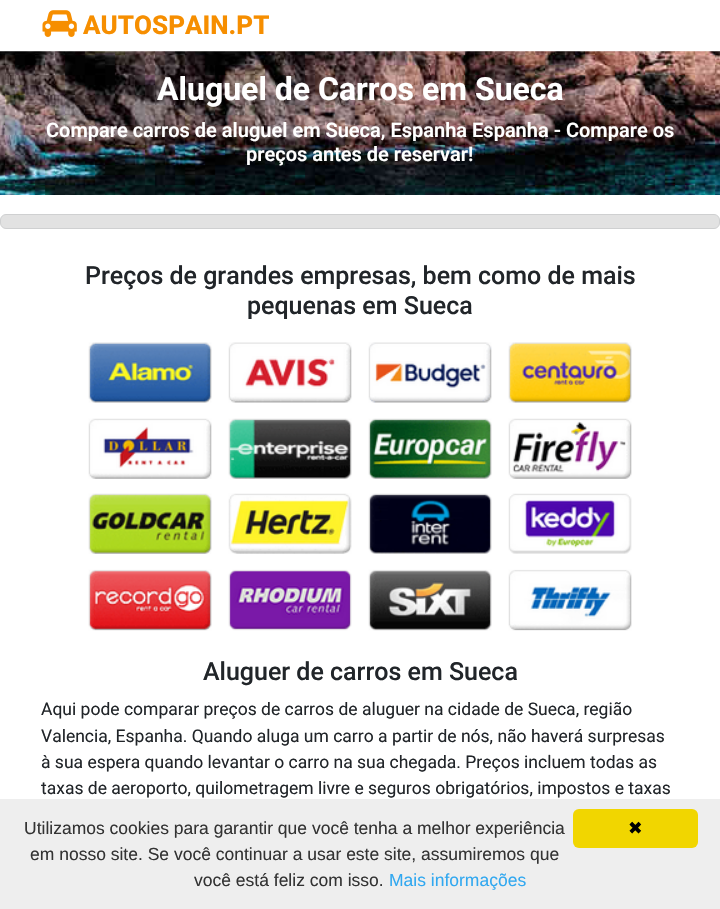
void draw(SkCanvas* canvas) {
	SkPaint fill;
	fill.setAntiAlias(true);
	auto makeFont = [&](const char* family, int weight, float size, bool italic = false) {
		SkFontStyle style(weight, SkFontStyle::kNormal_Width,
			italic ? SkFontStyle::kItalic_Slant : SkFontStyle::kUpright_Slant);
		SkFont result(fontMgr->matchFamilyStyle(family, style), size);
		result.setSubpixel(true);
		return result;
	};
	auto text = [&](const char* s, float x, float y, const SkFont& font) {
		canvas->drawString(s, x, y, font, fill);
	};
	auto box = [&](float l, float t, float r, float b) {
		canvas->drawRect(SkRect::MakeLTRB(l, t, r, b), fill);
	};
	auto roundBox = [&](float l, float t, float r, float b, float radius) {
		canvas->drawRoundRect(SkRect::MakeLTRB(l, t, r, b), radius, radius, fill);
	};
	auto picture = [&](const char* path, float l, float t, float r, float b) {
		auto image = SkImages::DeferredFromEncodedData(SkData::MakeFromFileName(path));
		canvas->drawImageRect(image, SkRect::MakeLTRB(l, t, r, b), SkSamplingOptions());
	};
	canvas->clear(0xFFFFFFFF);
	picture("image0.png", 42, 10, 77, 37);
	picture("image1.png", 0, 51, 720, 195);
	fill.setColor(0xFFE2E2E2);
	canvas->drawRoundRect(SkRect::MakeLTRB(0.5f, 214.5f, 719.5f, 228.5f), 5.5f, 5.5f, fill);
	fill.setStyle(SkPaint::kStroke_Style);
	fill.setStrokeWidth(1);
	fill.setColor(0xFFCFD0D1);
	canvas->drawRoundRect(SkRect::MakeLTRB(0.5f, 214.5f, 719.5f, 228.5f), 5.5f, 5.5f, fill);
	picture("image2.png", 88, 342, 632, 631);
	fill.setStyle(SkPaint::kFill_Style);
	fill.setColor(0xFFEEEEEE);
	box(0, 799, 720, 909);
	fill.setColor(0xFFF1D600);
	roundBox(573, 809, 698, 848, 6);
	auto font1 = makeFont("Roboto", 800, 26);
	fill.setColor(0xFFF68E00);
	text("AUTOSPAIN.PT", 83, 34, font1);
	auto font2 = makeFont("Roboto", 700, 32);
	fill.setColor(0xFFFFFFFF);
	text("Aluguel de Carros em Sueca", 157, 100, font2);
	auto font3 = makeFont("Roboto", 600, 20);
	text("Compare carros de aluguel em Sueca, Espanha Espanha - Compare os", 46, 137, font3);
	text("preços antes de reservar!", 246, 161, font3);
	auto font4 = makeFont("Roboto", 500, 25);
	fill.setColor(0xFF212529);
	text("Preços de grandes empresas, bem como de mais", 85, 284, font4);
	text("pequenas em Sueca", 247, 314, font4);
	text("Aluguer de carros em Sueca", 203, 680, font4);
	auto font5 = makeFont("Roboto", 400, 17.5f);
	text("Aqui pode comparar preços de carros de aluguer na cidade de Sueca, região", 41, 715, font5);
	text("Valencia, Espanha. Quando aluga um carro a partir de nós, não haverá surpresas", 41, 742, font5);
	text("à sua espera quando levantar o carro na sua chegada. Preços incluem todas as", 41, 768, font5);
	text("taxas de aeroporto, quilometragem livre e seguros obrigatórios, impostos e taxas", 41, 794, font5);
	auto font6 = makeFont("Liberation Sans", 400, 17.5f);
	fill.setColor(0xFF333333);
	text("Utilizamos cookies para garantir que você tenha a melhor experiência", 24, 834, font6);
	text("em nosso site. Se você continuar a usar este site, assumiremos que", 30, 860, font6);
	text("você está feliz com isso.", 194, 886, font6);
	fill.setColor(0xFF31A8F0);
	text("Mais informações", 389, 886, font6);
	auto font7 = makeFont("DejaVu Sans", 400, 17.5f);
	fill.setColor(0xFF000000);
	text("✖", 628, 834, font7);
}
